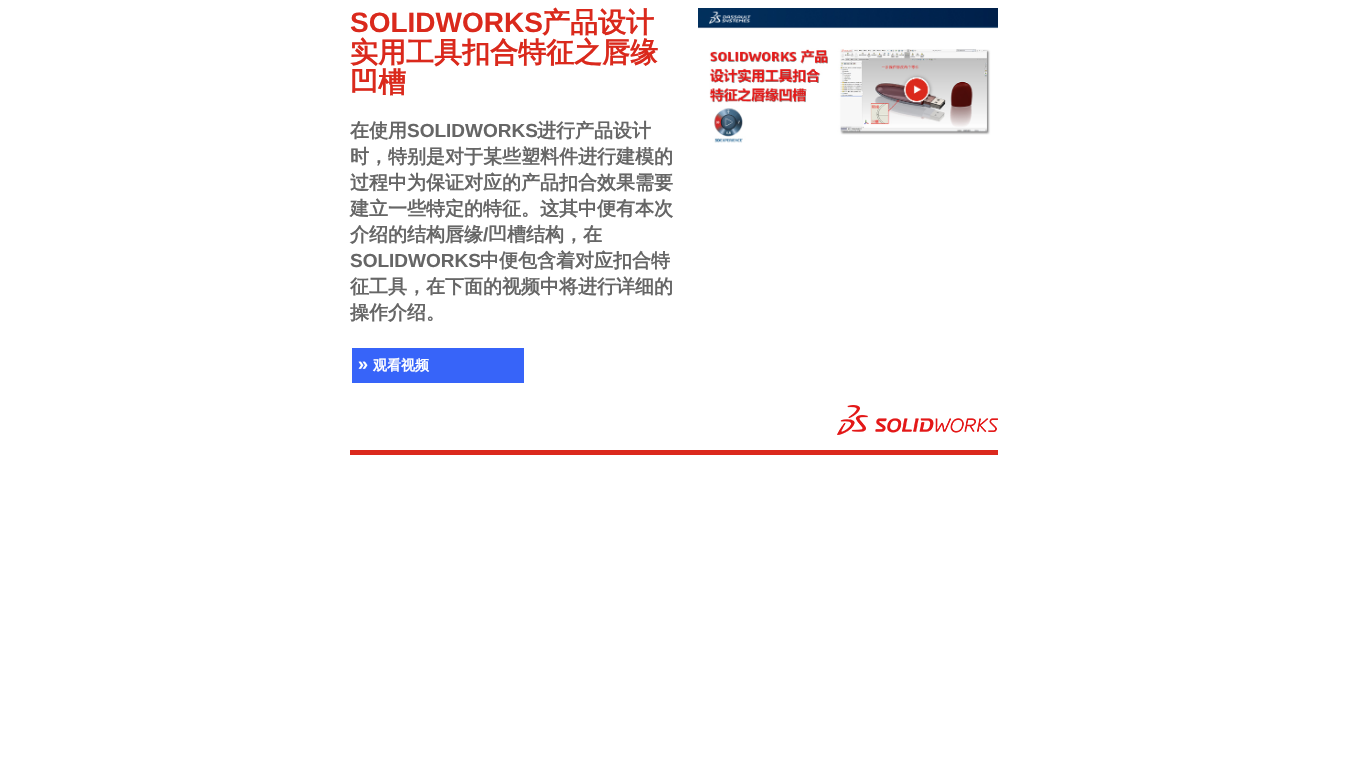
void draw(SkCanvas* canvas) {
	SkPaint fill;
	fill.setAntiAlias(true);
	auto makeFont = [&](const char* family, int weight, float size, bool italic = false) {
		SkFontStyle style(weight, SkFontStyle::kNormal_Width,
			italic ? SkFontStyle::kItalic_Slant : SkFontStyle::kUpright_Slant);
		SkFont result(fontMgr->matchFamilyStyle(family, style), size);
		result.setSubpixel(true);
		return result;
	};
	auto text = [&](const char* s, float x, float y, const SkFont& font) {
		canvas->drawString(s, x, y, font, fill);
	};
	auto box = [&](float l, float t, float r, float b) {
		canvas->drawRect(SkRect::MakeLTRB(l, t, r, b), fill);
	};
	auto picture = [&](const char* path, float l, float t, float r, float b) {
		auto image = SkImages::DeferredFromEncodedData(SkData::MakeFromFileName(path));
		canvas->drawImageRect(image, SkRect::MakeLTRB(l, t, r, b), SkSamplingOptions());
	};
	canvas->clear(0xFFFFFFFF);
	fill.setColor(0xFF3764F9);
	box(352, 348, 524, 383);
	picture("image0.png", 698, 8, 998, 143);
	picture("image1.png", 837, 405, 998, 435);
	fill.setColor(0xFFDB291D);
	box(350, 450, 998, 455);
	auto font1 = makeFont("Liberation Sans", 700, 28);
	fill.setColor(0xFFDA291C);
	text("SOLIDWORKS", 350, 32, font1);
	auto font2 = makeFont("WenQuanYi Zen Hei", 700, 28);
	text("产品设计", 542, 32, font2);
	text("实用工具扣合特征之唇缘", 350, 62, font2);
	text("凹槽", 350, 92, font2);
	auto font3 = makeFont("WenQuanYi Zen Hei", 700, 19);
	fill.setColor(0xFF666666);
	text("在使用", 350, 137, font3);
	auto font4 = makeFont("Liberation Sans", 700, 19);
	text("SOLIDWORKS", 407, 137, font4);
	text("进行产品设计", 537, 137, font3);
	text("时，特别是对于某些塑料件进行建模的", 350, 163, font3);
	text("过程中为保证对应的产品扣合效果需要", 350, 189, font3);
	text("建立一些特定的特征。这其中便有本次", 350, 215, font3);
	text("介绍的结构唇缘", 350, 241, font3);
	text("/", 483, 241, font4);
	text("凹槽结构，在", 488, 241, font3);
	text("SOLIDWORKS", 350, 267, font4);
	text("中便包含着对应扣合特", 480, 267, font3);
	text("征工具，在下面的视频中将进行详细的", 350, 293, font3);
	text("操作介绍。", 350, 319, font3);
	auto font5 = makeFont("Liberation Sans", 700, 18);
	fill.setColor(0xFFFFFFFF);
	text("»", 358, 370, font5);
	auto font6 = makeFont("WenQuanYi Zen Hei", 700, 14);
	text("观看视频", 373, 370, font6);
}
